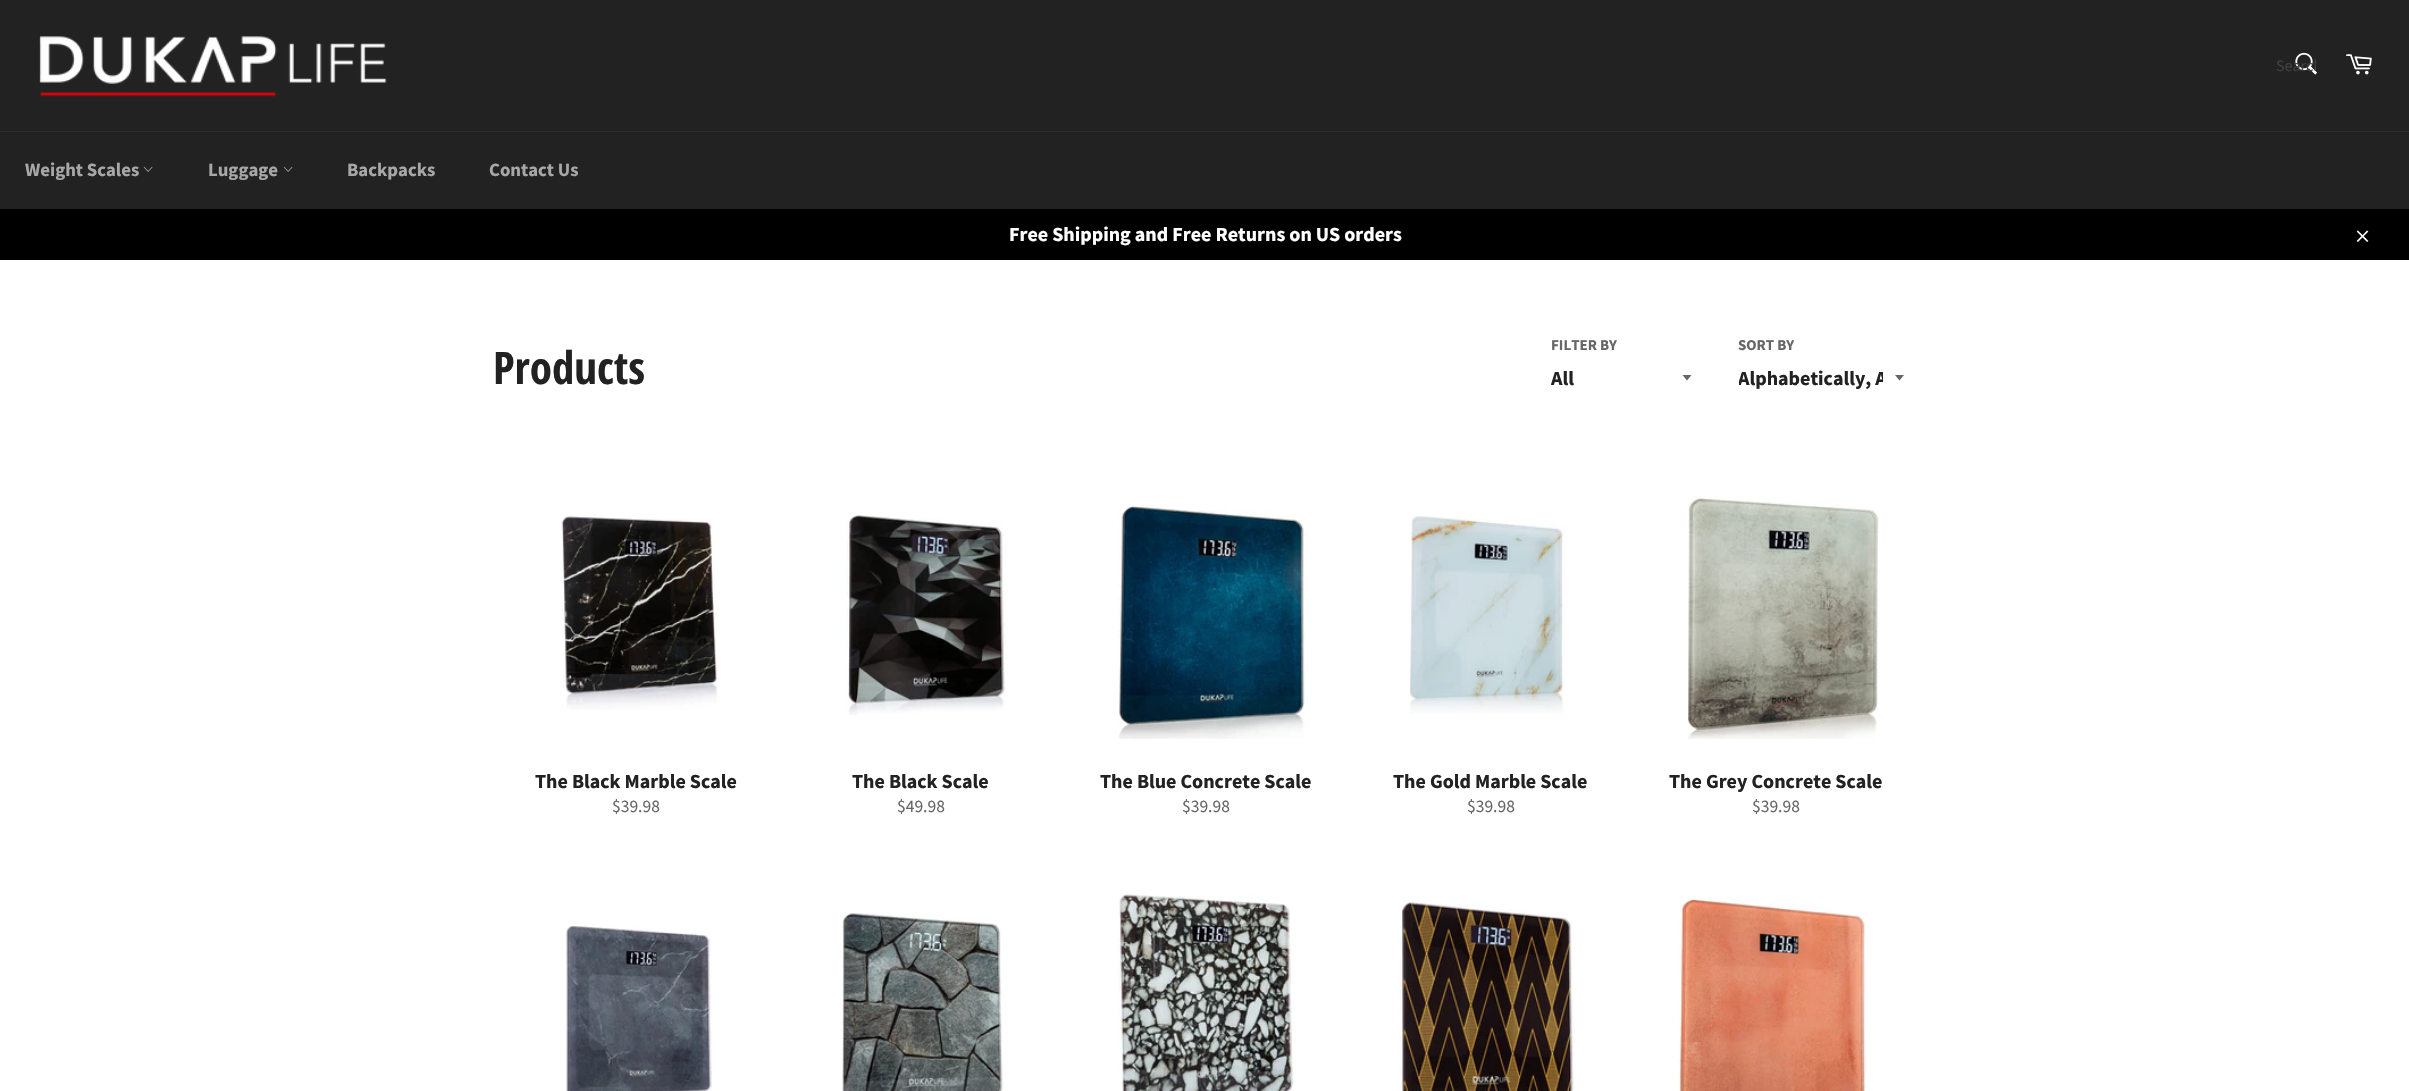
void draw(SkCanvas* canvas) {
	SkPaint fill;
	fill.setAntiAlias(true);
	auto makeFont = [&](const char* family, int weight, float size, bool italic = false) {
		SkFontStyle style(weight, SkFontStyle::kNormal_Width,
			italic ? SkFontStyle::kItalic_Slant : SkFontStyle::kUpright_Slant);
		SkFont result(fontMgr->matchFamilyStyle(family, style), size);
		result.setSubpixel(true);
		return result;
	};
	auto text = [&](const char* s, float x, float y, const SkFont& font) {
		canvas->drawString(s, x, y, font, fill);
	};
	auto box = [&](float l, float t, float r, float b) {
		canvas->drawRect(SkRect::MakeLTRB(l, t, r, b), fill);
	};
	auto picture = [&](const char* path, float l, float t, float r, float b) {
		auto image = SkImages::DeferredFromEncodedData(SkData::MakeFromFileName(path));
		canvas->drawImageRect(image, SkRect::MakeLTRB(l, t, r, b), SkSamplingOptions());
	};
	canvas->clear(0xFFFFFFFF);
	fill.setColor(0xFF222222);
	box(0, 0, 2409, 131);
	picture("image0.png", 39, 36, 387, 97);
	picture("image1.png", 2295, 52, 2317, 75);
	picture("image2.png", 2346, 54, 2372, 75);
	box(0, 132, 2409, 209);
	fill.setColor(0xFF2F2F2F);
	box(0, 131, 2409, 132);
	picture("image3.png", 143, 166, 153, 172);
	picture("image3.png", 283, 166, 293, 172);
	fill.setColor(0xFF000000);
	box(0, 209, 2409, 260);
	picture("image4.png", 2356, 230, 2369, 242);
	fill.setColor(0xFF666666);
	canvas->drawPath(SkPathBuilder().moveTo(1682.5f, 375).lineTo(1687, 380.5f).lineTo(1691.5f, 375).close().detach(), fill);
	canvas->drawPath(SkPathBuilder().moveTo(1895, 375).lineTo(1899.5f, 380.5f).lineTo(1904, 375).close().detach(), fill);
	picture("image5.png", 561, 514, 721, 710);
	picture("image6.png", 844, 515, 1006, 715);
	picture("image7.png", 1118, 503, 1309, 739);
	picture("image8.png", 1410, 516, 1566, 714);
	picture("image9.png", 1688, 496, 1879, 739);
	picture("image10.png", 566, 925, 712, 1091);
	picture("image11.png", 842, 913, 1005, 1091);
	picture("image12.png", 1118, 894, 1294, 1091);
	picture("image13.png", 1399, 900, 1575, 1091);
	picture("image14.png", 1678, 897, 1866, 1091);
	canvas->save();
	canvas->clipRect(SkRect::MakeLTRB(2276, 55, 2316, 76));
	auto font1 = makeFont("Source Sans Pro", 400, 16);
	fill.setColor(0xFF414141);
	text("Search", 2276, 71, font1);
	canvas->restore();
	auto font2 = makeFont("Source Sans Pro", 700, 18.75f);
	fill.setColor(0xFFA7A7A7);
	text("Weight Scales", 25, 176, font2);
	text("Luggage", 208, 176, font2);
	text("Backpacks", 347, 176, font2);
	text("Contact Us", 489, 176, font2);
	auto font3 = makeFont("Source Sans Pro", 700, 20);
	fill.setColor(0xFFFFFFFF);
	text("Free Shipping and Free Returns on US orders", 1009, 241, font3);
	auto font4 = makeFont("Open Sans Condensed", 700, 45);
	fill.setColor(0xFF222222);
	text("Products", 493, 384, font4);
	auto font5 = makeFont("Source Sans Pro", 700, 15);
	fill.setColor(0xFF666666);
	text("FILTER BY", 1551, 350, font5);
	fill.setColor(0xFF222222);
	text("All", 1551, 385, font3);
	fill.setColor(0xFF666666);
	text("SORT BY", 1738, 350, font5);
	canvas->save();
	canvas->clipRect(SkRect::MakeLTRB(1739, 364, 1883, 391));
	fill.setColor(0xFF222222);
	text("Alphabetically, A", 1738, 385, font3);
	canvas->restore();
	text("The Black Marble Scale", 535, 788, font3);
	auto font6 = makeFont("Source Sans Pro", 400, 17.5f);
	fill.setColor(0xFF666666);
	text("$39.98", 612, 812, font6);
	fill.setColor(0xFF222222);
	text("The Black Scale", 852, 788, font3);
	fill.setColor(0xFF666666);
	text("$49.98", 897, 812, font6);
	fill.setColor(0xFF222222);
	text("The Blue Concrete Scale", 1100, 788, font3);
	fill.setColor(0xFF666666);
	text("$39.98", 1182, 812, font6);
	fill.setColor(0xFF222222);
	text("The Gold Marble Scale", 1393, 788, font3);
	fill.setColor(0xFF666666);
	text("$39.98", 1467, 812, font6);
	fill.setColor(0xFF222222);
	text("The Grey Concrete Scale", 1669, 788, font3);
	fill.setColor(0xFF666666);
	text("$39.98", 1752, 812, font6);
}
